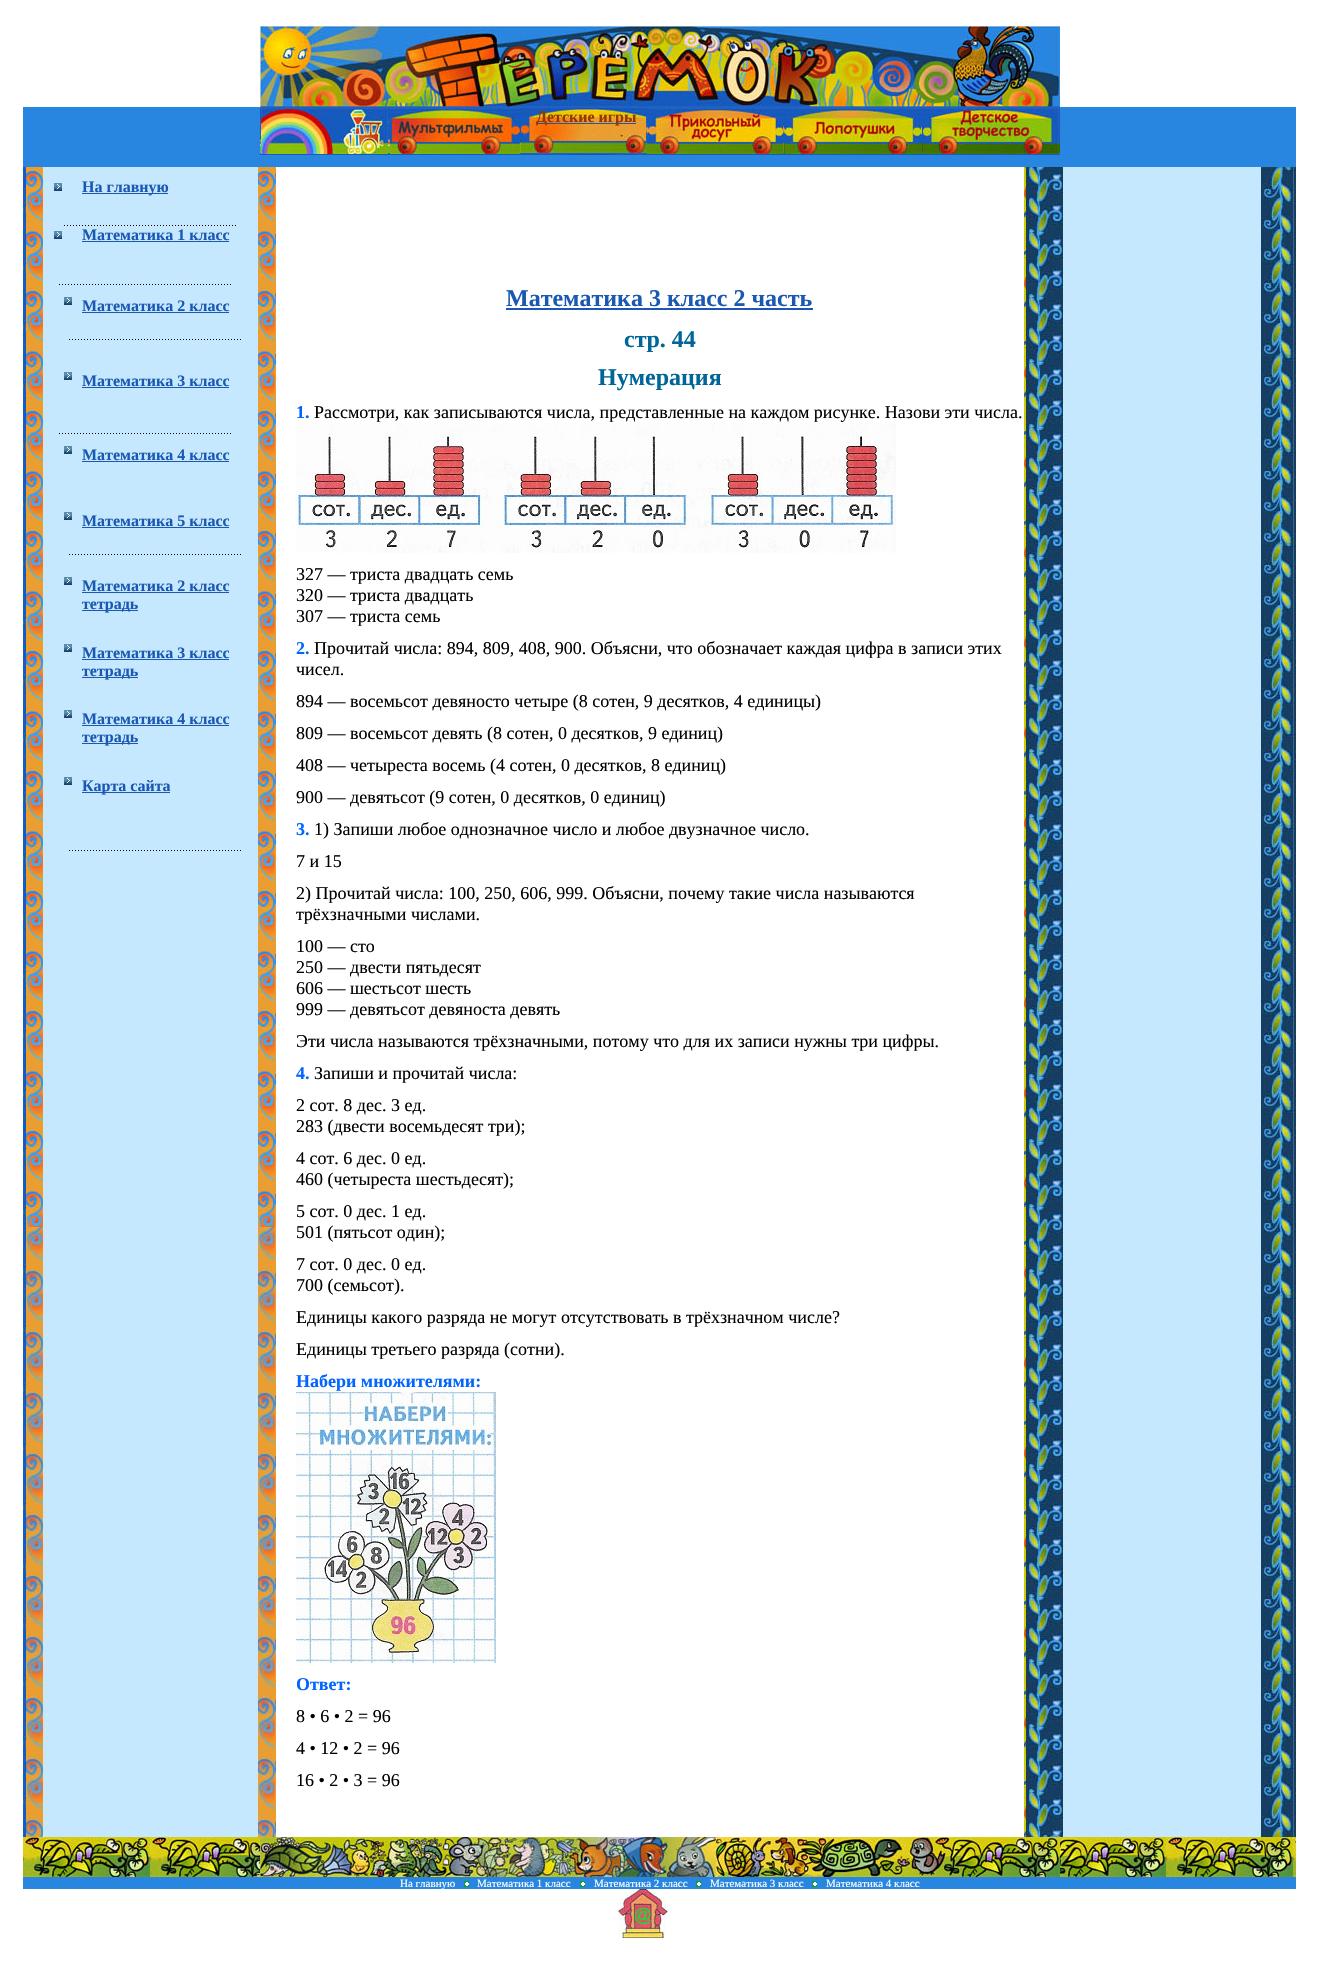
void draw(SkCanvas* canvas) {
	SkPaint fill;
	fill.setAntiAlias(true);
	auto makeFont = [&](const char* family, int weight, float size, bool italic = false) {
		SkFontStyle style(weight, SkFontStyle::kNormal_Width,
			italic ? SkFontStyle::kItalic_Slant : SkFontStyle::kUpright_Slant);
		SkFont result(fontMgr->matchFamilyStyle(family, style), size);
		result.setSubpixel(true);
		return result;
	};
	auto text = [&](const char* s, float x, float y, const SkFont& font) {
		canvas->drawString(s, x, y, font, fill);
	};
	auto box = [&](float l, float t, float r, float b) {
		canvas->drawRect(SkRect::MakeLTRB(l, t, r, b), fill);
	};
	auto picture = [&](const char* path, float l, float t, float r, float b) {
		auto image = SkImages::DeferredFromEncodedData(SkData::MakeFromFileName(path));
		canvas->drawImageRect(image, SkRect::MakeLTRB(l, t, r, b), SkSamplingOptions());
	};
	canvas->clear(0xFFFFFFFF);
	picture("image0.png", 260, 26, 1060, 107);
	fill.setColor(0xFF2886E0);
	box(23, 107, 1296, 155);
	picture("image1.png", 260, 107, 389, 155);
	picture("image2.png", 261, 108, 388, 154);
	picture("image3.png", 389, 107, 521, 155);
	picture("image4.png", 390, 108, 520, 154);
	picture("image5.png", 521, 107, 646, 155);
	fill.setColor(0xFF1B58B3);
	box(536, 123, 636, 124);
	picture("image6.png", 646, 107, 784, 155);
	picture("image7.png", 647, 108, 783, 154);
	picture("image8.png", 784, 107, 922, 155);
	picture("image9.png", 785, 108, 921, 154);
	picture("image10.png", 922, 107, 1060, 155);
	picture("image11.png", 923, 108, 1059, 154);
	fill.setColor(0xFF2886E0);
	box(23, 155, 1296, 167);
	picture("image12.png", 23, 167, 26, 1837);
	picture("image13.png", 26, 1227, 276, 1837);
	picture("image14.png", 26, 167, 43, 1227);
	fill.setColor(0xFFC5E8FE);
	box(43, 167, 258, 1227);
	picture("image15.png", 54, 183, 62, 191);
	fill.setColor(0xFF1B58B3);
	box(82, 193, 168, 194);
	picture("image16.png", 64, 225, 236, 226);
	picture("image15.png", 54, 231, 62, 239);
	box(82, 241, 229, 242);
	picture("image16.png", 59, 284, 231, 285);
	picture("image15.png", 64, 297, 72, 305);
	box(82, 312, 229, 313);
	picture("image16.png", 69, 339, 241, 340);
	picture("image15.png", 64, 372, 72, 380);
	box(82, 387, 229, 388);
	picture("image16.png", 59, 433, 231, 434);
	picture("image15.png", 64, 446, 72, 454);
	box(82, 461, 229, 462);
	picture("image15.png", 64, 512, 72, 520);
	box(82, 527, 229, 528);
	picture("image16.png", 69, 554, 241, 555);
	picture("image15.png", 64, 577, 72, 585);
	box(82, 592, 229, 593);
	box(82, 610, 138, 611);
	picture("image15.png", 64, 644, 72, 652);
	box(82, 659, 229, 660);
	box(82, 677, 138, 678);
	picture("image15.png", 64, 710, 72, 718);
	box(82, 725, 229, 726);
	box(82, 743, 138, 744);
	picture("image15.png", 64, 777, 72, 785);
	box(82, 792, 170, 793);
	picture("image16.png", 69, 850, 241, 851);
	picture("image17.png", 258, 167, 276, 1227);
	box(506, 308, 813, 310);
	picture("image18.png", 296, 423, 896, 553);
	picture("image19.png", 296, 1392, 496, 1663);
	picture("image20.png", 1024, 167, 1026, 1837);
	picture("image21.png", 1026, 167, 1067, 1837);
	fill.setColor(0xFFC5E8FE);
	box(1067, 167, 1261, 1837);
	picture("image22.png", 1261, 167, 1296, 1837);
	picture("image23.png", 23, 1837, 1296, 1877);
	picture("image24.png", 260, 1837, 1060, 1877);
	fill.setColor(0xFF2886E0);
	box(23, 1877, 1296, 1889);
	picture("image25.png", 464, 1881, 469, 1887);
	picture("image25.png", 580, 1881, 585, 1887);
	picture("image25.png", 696, 1881, 701, 1887);
	picture("image25.png", 812, 1881, 817, 1887);
	picture("image26.png", 618, 1889, 668, 1938);
	auto font1 = makeFont("Liberation Serif", 700, 16);
	fill.setColor(0xFF993300);
	text("Детские игры", 536, 122, font1);
	fill.setColor(0xFF1B58B3);
	text("На главную", 82, 192, font1);
	text("Математика 1 класс", 82, 240, font1);
	text("Математика 2 класс", 82, 311, font1);
	text("Математика 3 класс", 82, 386, font1);
	text("Математика 4 класс", 82, 460, font1);
	text("Математика 5 класс", 82, 526, font1);
	text("Математика 2 класс", 82, 591, font1);
	text("тетрадь", 82, 609, font1);
	text("Математика 3 класс", 82, 658, font1);
	text("тетрадь", 82, 676, font1);
	text("Математика 4 класс", 82, 724, font1);
	text("тетрадь", 82, 742, font1);
	text("Карта сайта", 82, 791, font1);
	auto font2 = makeFont("Liberation Serif", 700, 24);
	text("Математика 3 класс 2 часть", 506, 306, font2);
	fill.setColor(0xFF006699);
	text("стр. 44", 624, 347, font2);
	text("Нумерация", 598, 385, font2);
	auto font3 = makeFont("Liberation Serif", 700, 18);
	fill.setColor(0xFF0066FF);
	text("1.", 296, 418, font3);
	auto font4 = makeFont("Liberation Serif", 400, 18);
	fill.setColor(0xFF000000);
	text("Рассмотри, как записываются числа, представленные на каждом рисунке. Назови эти числа.", 314, 418, font4);
	text("327 — триста двадцать семь", 296, 580, font4);
	text("320 — триста двадцать", 296, 601, font4);
	text("307 — триста семь", 296, 622, font4);
	fill.setColor(0xFF0066FF);
	text("2.", 296, 654, font3);
	fill.setColor(0xFF000000);
	text("Прочитай числа: 894, 809, 408, 900. Объясни, что обозначает каждая цифра в записи этих", 314, 654, font4);
	text("чисел.", 296, 675, font4);
	text("894 — восемьсот девяносто четыре (8 сотен, 9 десятков, 4 единицы)", 296, 707, font4);
	text("809 — восемьсот девять (8 сотен, 0 десятков, 9 единиц)", 296, 739, font4);
	text("408 — четыреста восемь (4 сотен, 0 десятков, 8 единиц)", 296, 771, font4);
	text("900 — девятьсот (9 сотен, 0 десятков, 0 единиц)", 296, 803, font4);
	fill.setColor(0xFF0066FF);
	text("3.", 296, 835, font3);
	fill.setColor(0xFF000000);
	text("1) Запиши любое однозначное число и любое двузначное число.", 314, 835, font4);
	text("7 и 15", 296, 867, font4);
	text("2) Прочитай числа: 100, 250, 606, 999. Объясни, почему такие числа называются", 296, 899, font4);
	text("трёхзначными числами.", 296, 920, font4);
	text("100 — сто", 296, 952, font4);
	text("250 — двести пятьдесят", 296, 973, font4);
	text("606 — шестьсот шесть", 296, 994, font4);
	text("999 — девятьсот девяноста девять", 296, 1015, font4);
	text("Эти числа называются трёхзначными, потому что для их записи нужны три цифры.", 296, 1047, font4);
	fill.setColor(0xFF0066FF);
	text("4.", 296, 1079, font3);
	fill.setColor(0xFF000000);
	text("Запиши и прочитай числа:", 314, 1079, font4);
	text("2 сот. 8 дес. 3 ед.", 296, 1111, font4);
	text("283 (двести восемьдесят три);", 296, 1132, font4);
	text("4 сот. 6 дес. 0 ед.", 296, 1164, font4);
	text("460 (четыреста шестьдесят);", 296, 1185, font4);
	text("5 сот. 0 дес. 1 ед.", 296, 1217, font4);
	text("501 (пятьсот один);", 296, 1238, font4);
	text("7 сот. 0 дес. 0 ед.", 296, 1270, font4);
	text("700 (семьсот).", 296, 1291, font4);
	text("Единицы какого разряда не могут отсутствовать в трёхзначном числе?", 296, 1323, font4);
	text("Единицы третьего разряда (сотни).", 296, 1355, font4);
	fill.setColor(0xFF0066FF);
	text("Набери множителями:", 296, 1387, font3);
	text("Ответ:", 296, 1690, font3);
	fill.setColor(0xFF000000);
	text("8 • 6 • 2 = 96", 296, 1722, font4);
	text("4 • 12 • 2 = 96", 296, 1754, font4);
	text("16 • 2 • 3 = 96", 296, 1786, font4);
	auto font5 = makeFont("Liberation Serif", 400, 11);
	fill.setColor(0xFFFFFFFF);
	text("На главную", 400, 1887, font5);
	text("Математика 1 класс", 477, 1887, font5);
	text("Математика 2 класс", 594, 1887, font5);
	text("Математика 3 класс", 710, 1887, font5);
	text("Математика 4 класс", 826, 1887, font5);
}
